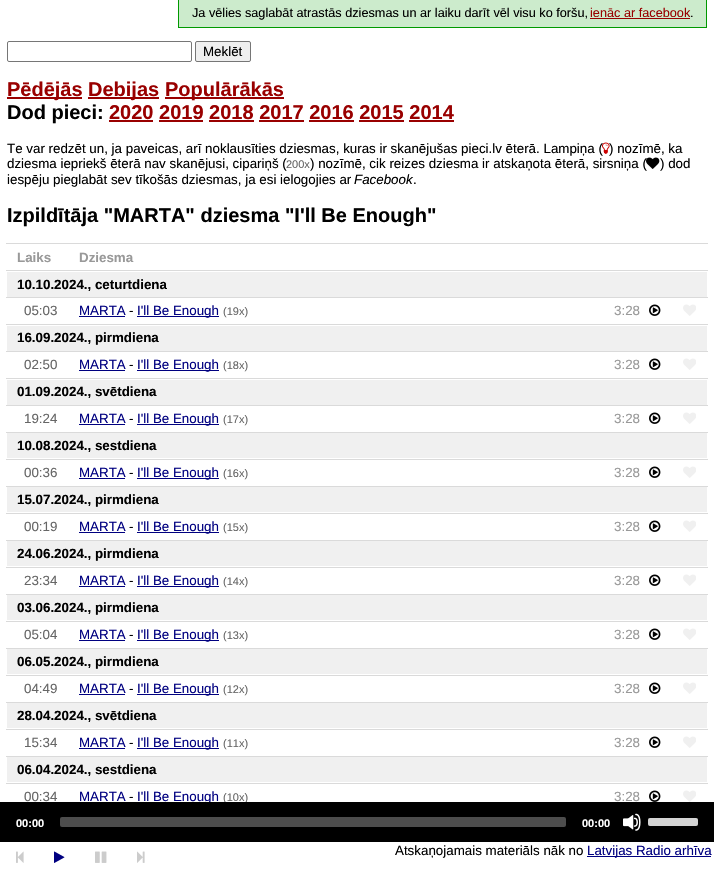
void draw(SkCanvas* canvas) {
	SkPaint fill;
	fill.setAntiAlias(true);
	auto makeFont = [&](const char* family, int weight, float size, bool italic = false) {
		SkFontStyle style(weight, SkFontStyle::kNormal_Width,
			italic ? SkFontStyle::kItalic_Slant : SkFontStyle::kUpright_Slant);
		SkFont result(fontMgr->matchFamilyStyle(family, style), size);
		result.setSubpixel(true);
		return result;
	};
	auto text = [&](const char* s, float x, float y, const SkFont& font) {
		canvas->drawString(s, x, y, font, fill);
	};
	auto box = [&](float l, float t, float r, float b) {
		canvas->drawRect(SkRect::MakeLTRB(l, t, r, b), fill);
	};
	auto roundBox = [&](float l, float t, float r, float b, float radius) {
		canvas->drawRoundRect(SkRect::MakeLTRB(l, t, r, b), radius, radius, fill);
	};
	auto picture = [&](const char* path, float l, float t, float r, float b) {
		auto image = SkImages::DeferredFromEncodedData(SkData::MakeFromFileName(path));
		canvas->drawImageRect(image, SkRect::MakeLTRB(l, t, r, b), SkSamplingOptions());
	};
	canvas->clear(0xFFFFFFFF);
	fill.setColor(0xFFCCEBCC);
	canvas->drawRect(SkRect::MakeLTRB(178.5f, -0.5f, 706.5f, 27.5f), fill);
	fill.setStyle(SkPaint::kStroke_Style);
	fill.setStrokeWidth(1);
	fill.setColor(0xFF009900);
	canvas->drawRect(SkRect::MakeLTRB(178.5f, -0.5f, 706.5f, 27.5f), fill);
	fill.setStyle(SkPaint::kFill_Style);
	fill.setColor(0xFF990000);
	box(590, 18, 690, 19);
	fill.setStyle(SkPaint::kStroke_Style);
	fill.setColor(0xFF767676);
	canvas->drawRoundRect(SkRect::MakeLTRB(7.5f, 41.5f, 191.5f, 61.5f), 1.5f, 1.5f, fill);
	fill.setStyle(SkPaint::kFill_Style);
	fill.setColor(0xFFEFEFEF);
	canvas->drawRoundRect(SkRect::MakeLTRB(195.5f, 41.5f, 250.5f, 61.5f), 1.5f, 1.5f, fill);
	fill.setStyle(SkPaint::kStroke_Style);
	fill.setColor(0xFF767676);
	canvas->drawRoundRect(SkRect::MakeLTRB(195.5f, 41.5f, 250.5f, 61.5f), 1.5f, 1.5f, fill);
	fill.setStyle(SkPaint::kFill_Style);
	fill.setColor(0xFF990000);
	box(7, 97, 82, 99);
	box(88, 97, 159, 99);
	box(165, 97, 284, 99);
	box(109, 120, 153, 122);
	box(159, 120, 203, 122);
	box(209, 120, 254, 122);
	box(259, 120, 304, 122);
	box(309, 120, 354, 122);
	box(359, 120, 404, 122);
	box(409, 120, 454, 122);
	picture("image0.png", 602, 142, 610, 154);
	fill.setColor(0xFFDADADA);
	box(6, 243, 708, 244);
	fill.setColor(0xFFF0F0F0);
	box(7, 272, 707, 297);
	fill.setColor(0xFFDADADA);
	box(6, 270, 708, 271);
	box(6, 297, 708, 298);
	picture("image2.png", 683, 304, 696, 316);
	fill.setColor(0xFF000080);
	box(79, 316, 125, 317);
	box(137, 316, 219, 317);
	picture("image3.png", 649, 304, 661, 316);
	fill.setColor(0xFFF0F0F0);
	box(7, 326, 707, 351);
	fill.setColor(0xFFDADADA);
	box(6, 324, 708, 325);
	box(6, 351, 708, 352);
	picture("image2.png", 683, 358, 696, 370);
	fill.setColor(0xFF000080);
	box(79, 370, 125, 371);
	box(137, 370, 219, 371);
	picture("image3.png", 649, 358, 661, 370);
	fill.setColor(0xFFF0F0F0);
	box(7, 380, 707, 405);
	fill.setColor(0xFFDADADA);
	box(6, 378, 708, 379);
	box(6, 405, 708, 406);
	picture("image2.png", 683, 412, 696, 424);
	fill.setColor(0xFF000080);
	box(79, 424, 125, 425);
	box(137, 424, 219, 425);
	picture("image3.png", 649, 412, 661, 424);
	fill.setColor(0xFFF0F0F0);
	box(7, 433, 707, 458);
	fill.setColor(0xFFDADADA);
	box(6, 432, 708, 433);
	box(6, 459, 708, 460);
	picture("image2.png", 683, 466, 696, 478);
	fill.setColor(0xFF000080);
	box(79, 478, 125, 479);
	box(137, 478, 219, 479);
	picture("image3.png", 649, 466, 661, 478);
	fill.setColor(0xFFF0F0F0);
	box(7, 487, 707, 512);
	fill.setColor(0xFFDADADA);
	box(6, 486, 708, 487);
	box(6, 513, 708, 514);
	picture("image2.png", 683, 520, 696, 532);
	fill.setColor(0xFF000080);
	box(79, 532, 125, 533);
	box(137, 532, 219, 533);
	picture("image3.png", 649, 520, 661, 532);
	fill.setColor(0xFFF0F0F0);
	box(7, 541, 707, 566);
	fill.setColor(0xFFDADADA);
	box(6, 540, 708, 541);
	box(6, 567, 708, 568);
	picture("image2.png", 683, 574, 696, 586);
	fill.setColor(0xFF000080);
	box(79, 586, 125, 587);
	box(137, 586, 219, 587);
	picture("image3.png", 649, 574, 661, 586);
	fill.setColor(0xFFF0F0F0);
	box(7, 595, 707, 620);
	fill.setColor(0xFFDADADA);
	box(6, 594, 708, 595);
	box(6, 621, 708, 622);
	picture("image2.png", 683, 628, 696, 640);
	fill.setColor(0xFF000080);
	box(79, 640, 125, 641);
	box(137, 640, 219, 641);
	picture("image3.png", 649, 628, 661, 640);
	fill.setColor(0xFFF0F0F0);
	box(7, 649, 707, 674);
	fill.setColor(0xFFDADADA);
	box(6, 648, 708, 649);
	box(6, 675, 708, 676);
	picture("image2.png", 683, 682, 696, 694);
	fill.setColor(0xFF000080);
	box(79, 694, 125, 695);
	box(137, 694, 219, 695);
	picture("image3.png", 649, 682, 661, 694);
	fill.setColor(0xFFF0F0F0);
	box(7, 703, 707, 728);
	fill.setColor(0xFFDADADA);
	box(6, 702, 708, 703);
	box(6, 729, 708, 730);
	picture("image2.png", 683, 736, 696, 748);
	fill.setColor(0xFF000080);
	box(79, 748, 125, 749);
	box(137, 748, 219, 749);
	picture("image3.png", 649, 736, 661, 748);
	fill.setColor(0xFFF0F0F0);
	box(7, 757, 707, 782);
	fill.setColor(0xFFDADADA);
	box(6, 756, 708, 757);
	box(6, 783, 708, 784);
	picture("image2.png", 683, 790, 696, 802);
	picture("image3.png", 649, 790, 661, 802);
	picture("image5.png", 16, 851, 24, 863);
	picture("image6.png", 54, 851, 65, 863);
	picture("image7.png", 95, 851, 107, 863);
	picture("image8.png", 137, 851, 145, 863);
	fill.setColor(0xFF000080);
	box(587, 856, 711, 857);
	auto font1 = makeFont("Liberation Sans", 400, 12.7f);
	fill.setColor(0xFF000000);
	text("Ja vēlies saglabāt atrastās dziesmas un ar laiku darīt vēl visu ko foršu,", 192, 17, font1);
	fill.setColor(0xFF990000);
	text("ienāc ar facebook", 590, 17, font1);
	fill.setColor(0xFF000000);
	text(".", 690, 17, font1);
	auto font2 = makeFont("Liberation Sans", 400, 13.35f);
	text("Meklēt", 203, 56, font2);
	auto font3 = makeFont("Liberation Sans", 700, 20);
	fill.setColor(0xFF990000);
	text("Pēdējās", 7, 96, font3);
	text("Debijas", 88, 96, font3);
	text("Populārākās", 165, 96, font3);
	fill.setColor(0xFF000000);
	text("Dod pieci:", 7, 119, font3);
	fill.setColor(0xFF990000);
	text("2020 2019 2018 2017 2016 2015 2014", 109, 119, font3);
	fill.setColor(0xFF000000);
	text("Te var redzēt un, ja paveicas, arī noklausīties dziesmas, kuras ir skanējušas pieci.lv ēterā. Lampiņa (", 7, 153, font2);
	text(") nozīmē, ka", 609, 153, font2);
	text("dziesma iepriekš ēterā nav skanējusi, cipariņš (", 7, 168, font2);
	auto font4 = makeFont("Liberation Sans", 400, 11);
	fill.setColor(0xFF666666);
	text("200x", 286, 168, font4);
	fill.setColor(0xFF000000);
	text(") nozīmē, cik reizes dziesma ir atskaņota ēterā, sirsniņa (", 310, 168, font2);
	picture("image1.png", 646, 157, 660, 169);
	text(") dod", 660, 168, font2);
	text("iespēju pieglabāt sev tīkošās dziesmas, ja esi ielogojies ar", 7, 184, font2);
	auto font5 = makeFont("Liberation Sans", 400, 13.35f, true);
	text("Facebook", 354, 184, font5);
	text(".", 413, 184, font2);
	text("Izpildītāja \"MARTA\" dziesma \"I'll Be Enough\"", 7, 222, font3);
	auto font6 = makeFont("Liberation Sans", 700, 13.35f);
	fill.setColor(0xFF999999);
	text("Laiks", 17, 262, font6);
	text("Dziesma", 79, 262, font6);
	fill.setColor(0xFF000000);
	text("10.10.2024., ceturtdiena", 17, 289, font6);
	fill.setColor(0xFF666666);
	text("05:03", 24, 315, font2);
	fill.setColor(0xFF000080);
	text("MARTA", 79, 315, font2);
	fill.setColor(0xFF000000);
	text("-", 129, 315, font2);
	fill.setColor(0xFF000080);
	text("I'll Be Enough", 137, 315, font2);
	fill.setColor(0xFF666666);
	text("(19x)", 223, 315, font4);
	fill.setColor(0xFF999999);
	text("3:28", 614, 315, font2);
	fill.setColor(0xFF000000);
	text("16.09.2024., pirmdiena", 17, 342, font6);
	fill.setColor(0xFF666666);
	text("02:50", 24, 369, font2);
	fill.setColor(0xFF000080);
	text("MARTA", 79, 369, font2);
	fill.setColor(0xFF000000);
	text("-", 129, 369, font2);
	fill.setColor(0xFF000080);
	text("I'll Be Enough", 137, 369, font2);
	fill.setColor(0xFF666666);
	text("(18x)", 223, 369, font4);
	fill.setColor(0xFF999999);
	text("3:28", 614, 369, font2);
	fill.setColor(0xFF000000);
	text("01.09.2024., svētdiena", 17, 396, font6);
	fill.setColor(0xFF666666);
	text("19:24", 24, 423, font2);
	fill.setColor(0xFF000080);
	text("MARTA", 79, 423, font2);
	fill.setColor(0xFF000000);
	text("-", 129, 423, font2);
	fill.setColor(0xFF000080);
	text("I'll Be Enough", 137, 423, font2);
	fill.setColor(0xFF666666);
	text("(17x)", 223, 423, font4);
	fill.setColor(0xFF999999);
	text("3:28", 614, 423, font2);
	fill.setColor(0xFF000000);
	text("10.08.2024., sestdiena", 17, 450, font6);
	fill.setColor(0xFF666666);
	text("00:36", 24, 477, font2);
	fill.setColor(0xFF000080);
	text("MARTA", 79, 477, font2);
	fill.setColor(0xFF000000);
	text("-", 129, 477, font2);
	fill.setColor(0xFF000080);
	text("I'll Be Enough", 137, 477, font2);
	fill.setColor(0xFF666666);
	text("(16x)", 223, 477, font4);
	fill.setColor(0xFF999999);
	text("3:28", 614, 477, font2);
	fill.setColor(0xFF000000);
	text("15.07.2024., pirmdiena", 17, 504, font6);
	fill.setColor(0xFF666666);
	text("00:19", 24, 531, font2);
	fill.setColor(0xFF000080);
	text("MARTA", 79, 531, font2);
	fill.setColor(0xFF000000);
	text("-", 129, 531, font2);
	fill.setColor(0xFF000080);
	text("I'll Be Enough", 137, 531, font2);
	fill.setColor(0xFF666666);
	text("(15x)", 223, 531, font4);
	fill.setColor(0xFF999999);
	text("3:28", 614, 531, font2);
	fill.setColor(0xFF000000);
	text("24.06.2024., pirmdiena", 17, 558, font6);
	fill.setColor(0xFF666666);
	text("23:34", 24, 585, font2);
	fill.setColor(0xFF000080);
	text("MARTA", 79, 585, font2);
	fill.setColor(0xFF000000);
	text("-", 129, 585, font2);
	fill.setColor(0xFF000080);
	text("I'll Be Enough", 137, 585, font2);
	fill.setColor(0xFF666666);
	text("(14x)", 223, 585, font4);
	fill.setColor(0xFF999999);
	text("3:28", 614, 585, font2);
	fill.setColor(0xFF000000);
	text("03.06.2024., pirmdiena", 17, 612, font6);
	fill.setColor(0xFF666666);
	text("05:04", 24, 639, font2);
	fill.setColor(0xFF000080);
	text("MARTA", 79, 639, font2);
	fill.setColor(0xFF000000);
	text("-", 129, 639, font2);
	fill.setColor(0xFF000080);
	text("I'll Be Enough", 137, 639, font2);
	fill.setColor(0xFF666666);
	text("(13x)", 223, 639, font4);
	fill.setColor(0xFF999999);
	text("3:28", 614, 639, font2);
	fill.setColor(0xFF000000);
	text("06.05.2024., pirmdiena", 17, 666, font6);
	fill.setColor(0xFF666666);
	text("04:49", 24, 693, font2);
	fill.setColor(0xFF000080);
	text("MARTA", 79, 693, font2);
	fill.setColor(0xFF000000);
	text("-", 129, 693, font2);
	fill.setColor(0xFF000080);
	text("I'll Be Enough", 137, 693, font2);
	fill.setColor(0xFF666666);
	text("(12x)", 223, 693, font4);
	fill.setColor(0xFF999999);
	text("3:28", 614, 693, font2);
	fill.setColor(0xFF000000);
	text("28.04.2024., svētdiena", 17, 720, font6);
	fill.setColor(0xFF666666);
	text("15:34", 24, 747, font2);
	fill.setColor(0xFF000080);
	text("MARTA", 79, 747, font2);
	fill.setColor(0xFF000000);
	text("-", 129, 747, font2);
	fill.setColor(0xFF000080);
	text("I'll Be Enough", 137, 747, font2);
	fill.setColor(0xFF666666);
	text("(11x)", 223, 747, font4);
	fill.setColor(0xFF999999);
	text("3:28", 614, 747, font2);
	fill.setColor(0xFF000000);
	text("06.04.2024., sestdiena", 17, 774, font6);
	fill.setColor(0xFF666666);
	text("00:34", 24, 801, font2);
	fill.setColor(0xFF000080);
	text("MARTA", 79, 801, font2);
	fill.setColor(0xFF000000);
	text("-", 129, 801, font2);
	fill.setColor(0xFF000080);
	text("I'll Be Enough", 137, 801, font2);
	fill.setColor(0xFF666666);
	text("(10x)", 223, 801, font4);
	fill.setColor(0xFF999999);
	text("3:28", 614, 801, font2);
	fill.setColor(0xFF000000);
	box(0, 802, 714, 842);
	auto font7 = makeFont("Liberation Sans", 700, 11);
	fill.setColor(0xFFFFFFFF);
	text("00:00", 16, 827, font7);
	fill.setColor(0xFF4D4D4D);
	roundBox(60, 817, 566, 827, 2);
	fill.setColor(0xFFFFFFFF);
	text("00:00", 582, 827, font7);
	picture("image4.png", 623, 813, 641, 831);
	fill.setColor(0xFF282828);
	roundBox(648, 818, 698, 826, 2);
	fill.setColor(0xCCFFFFFF);
	roundBox(648, 818, 698, 826, 2);
	fill.setColor(0xFF000000);
	text("Atskaņojamais materiāls nāk no", 395, 855, font2);
	fill.setColor(0xFF000080);
	text("Latvijas Radio arhīva", 587, 855, font2);
}
